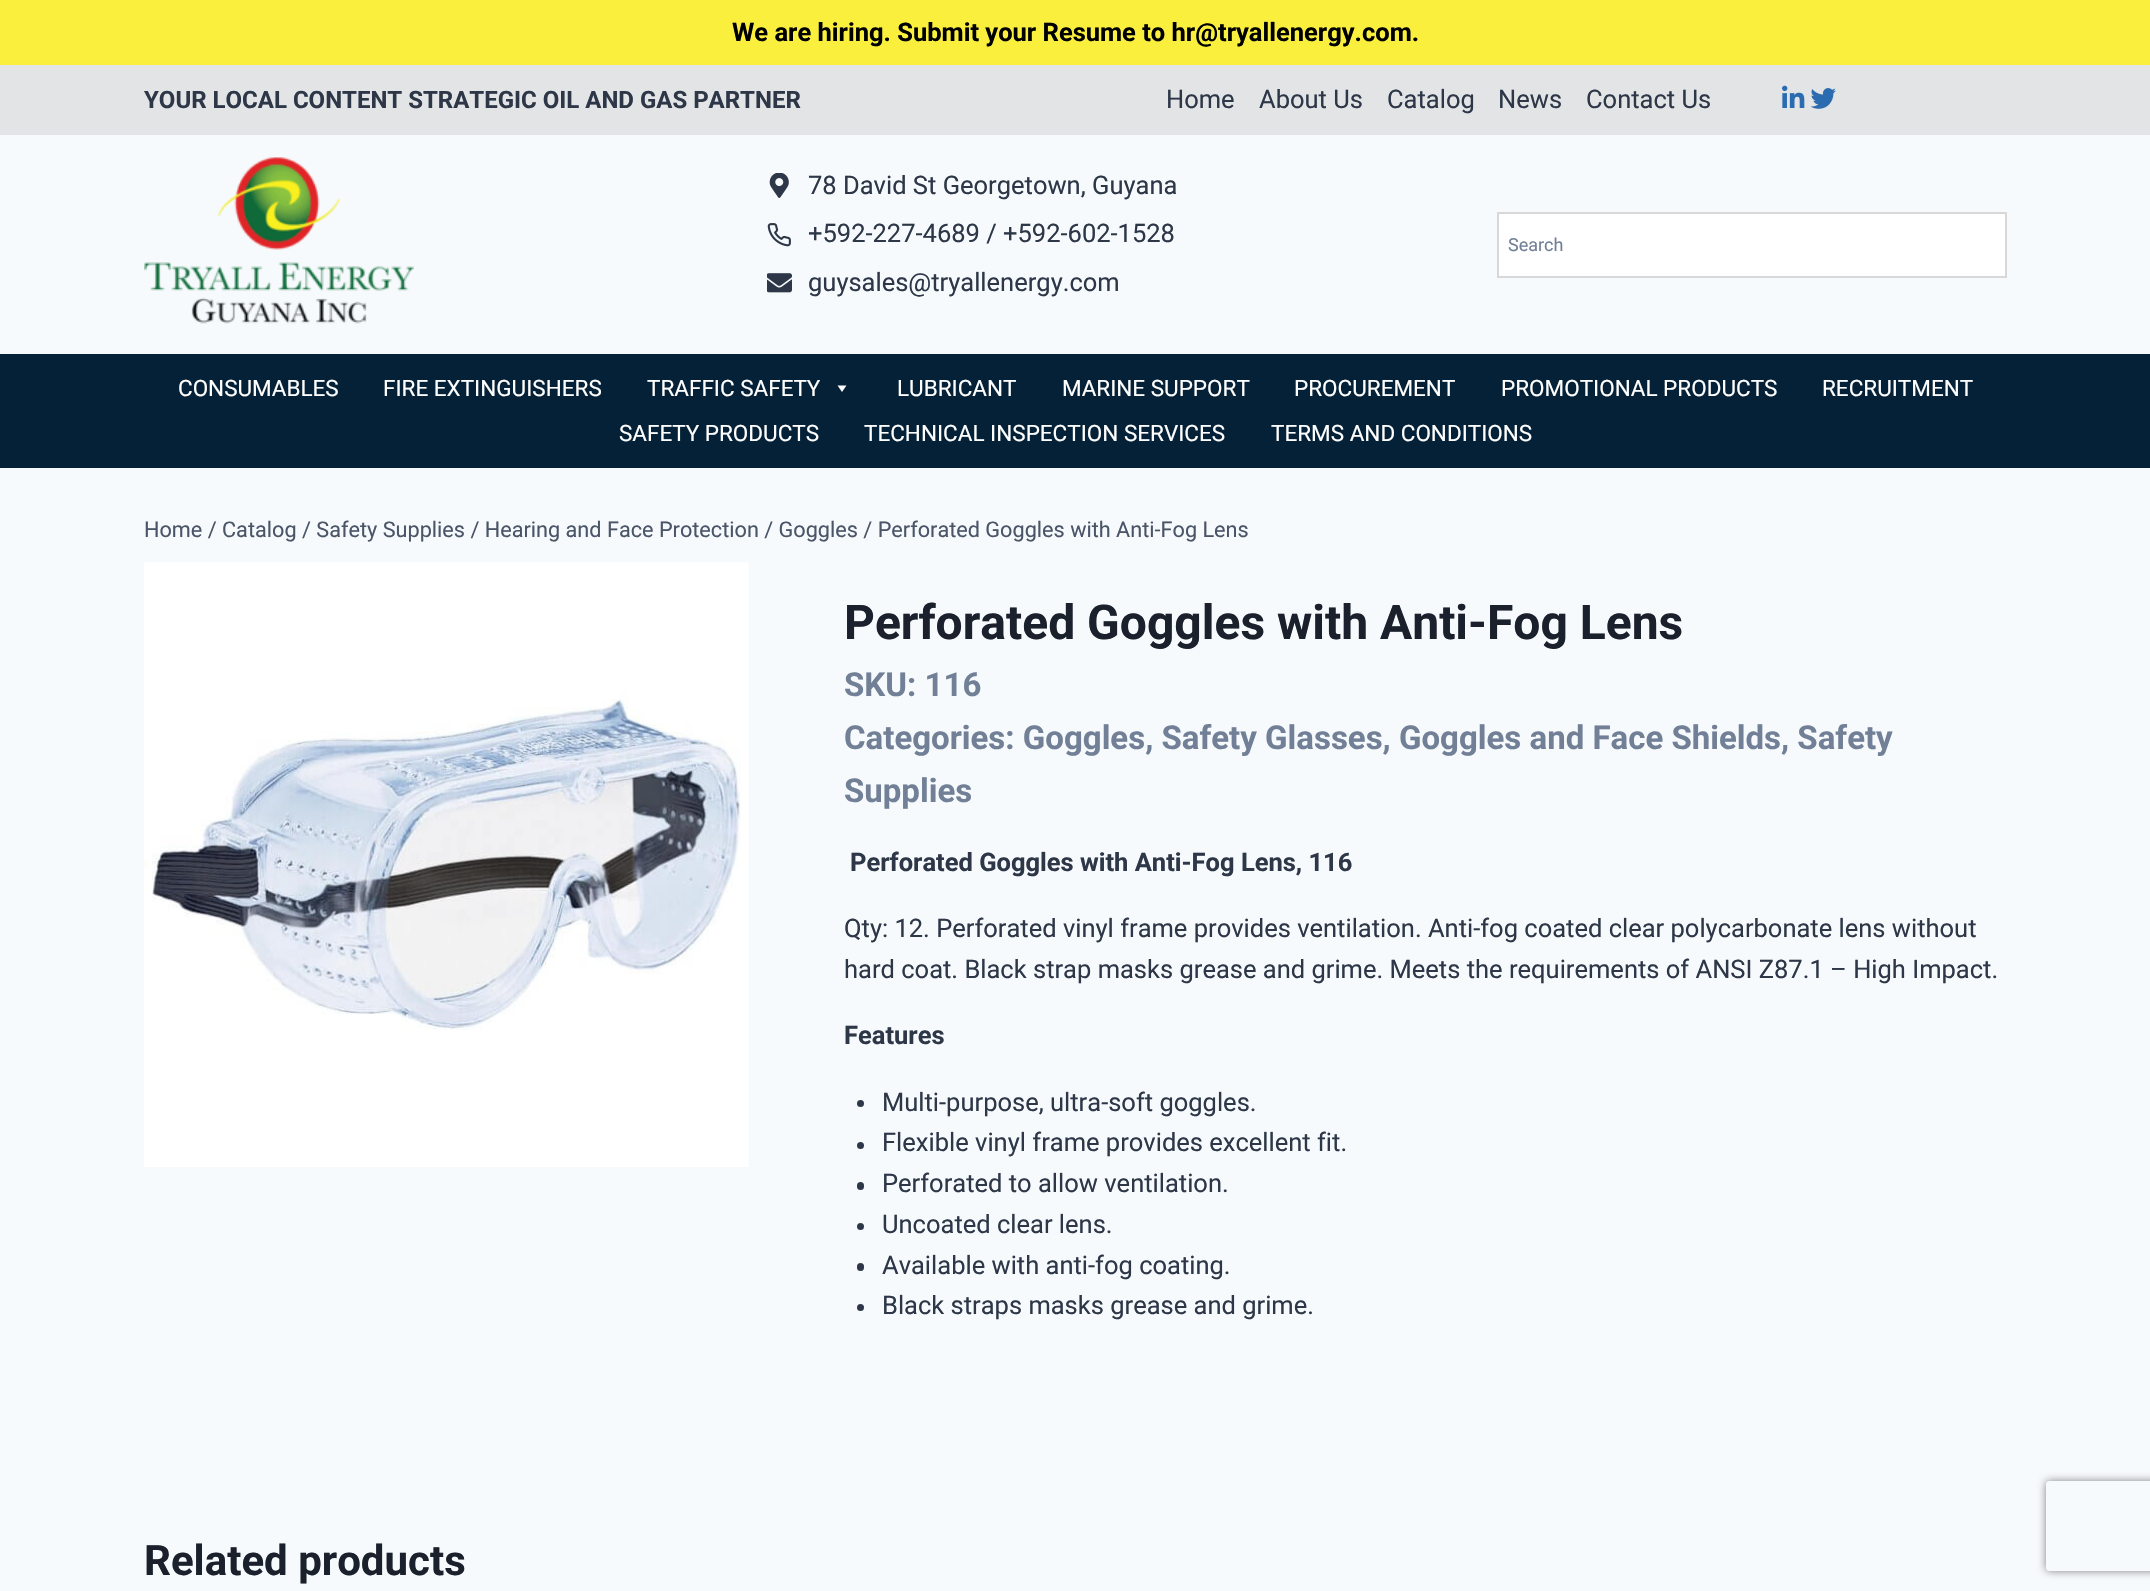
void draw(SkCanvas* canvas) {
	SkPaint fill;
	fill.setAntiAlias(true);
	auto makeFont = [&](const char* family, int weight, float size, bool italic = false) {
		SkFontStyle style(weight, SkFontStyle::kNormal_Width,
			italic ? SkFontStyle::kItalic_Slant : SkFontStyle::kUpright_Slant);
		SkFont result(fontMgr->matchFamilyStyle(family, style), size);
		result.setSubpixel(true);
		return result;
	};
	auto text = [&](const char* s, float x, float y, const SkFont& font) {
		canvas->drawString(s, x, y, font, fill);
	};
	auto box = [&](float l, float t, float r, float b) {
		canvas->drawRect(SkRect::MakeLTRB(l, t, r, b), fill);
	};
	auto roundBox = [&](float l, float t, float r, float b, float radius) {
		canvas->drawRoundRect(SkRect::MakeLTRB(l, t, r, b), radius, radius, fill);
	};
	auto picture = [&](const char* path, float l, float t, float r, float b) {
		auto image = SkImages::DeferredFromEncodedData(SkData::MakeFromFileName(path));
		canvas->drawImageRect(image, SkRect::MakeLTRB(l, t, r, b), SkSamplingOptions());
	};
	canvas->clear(0xFFF7FAFC);
	fill.setColor(0xFFF9EF3C);
	box(0, 0, 2150, 65);
	fill.setColor(0xFFE2E4E5);
	box(0, 65, 2150, 135);
	picture("image0.png", 1782, 85, 1805, 108);
	picture("image1.png", 1810, 88, 1836, 109);
	picture("image2.png", 144, 157, 414, 324);
	picture("image3.png", 769, 173, 789, 198);
	picture("image4.png", 767, 223, 791, 247);
	picture("image5.png", 767, 273, 792, 293);
	fill.setColor(0xFFFFFFFF);
	canvas->drawRect(SkRect::MakeLTRB(1498, 213, 2006, 277), fill);
	fill.setStyle(SkPaint::kStroke_Style);
	fill.setStrokeWidth(2);
	fill.setColor(0xFFD8D8D8);
	canvas->drawRect(SkRect::MakeLTRB(1498, 213, 2006, 277), fill);
	fill.setStyle(SkPaint::kFill_Style);
	fill.setColor(0xFF052137);
	box(0, 354, 2150, 468);
	fill.setColor(0xFFFFFFFF);
	canvas->drawPath(SkPathBuilder().moveTo(846.5f, 385.5f).lineTo(842, 392).lineTo(837.5f, 385.5f).close().detach(), fill);
	picture("image6.png", 144, 562, 749, 1167);
	fill.setColor(0xFF2D3748);
	canvas->drawCircle(860.5f, 1103.5f, 3.5f, fill);
	canvas->drawCircle(860.5f, 1145.5f, 3.5f, fill);
	roundBox(857, 1182, 864, 1190, 3.5f);
	canvas->drawCircle(860.5f, 1226.5f, 3.5f, fill);
	roundBox(857, 1263, 864, 1271, 3.5f);
	canvas->drawCircle(860.5f, 1307.5f, 3.5f, fill);
	canvas->save();
	canvas->clipPath(SkPathBuilder(SkPathFillType::kEvenOdd).moveTo(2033, 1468).lineTo(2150, 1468).lineTo(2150, 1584).lineTo(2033, 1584).close().moveTo(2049, 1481).lineTo(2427, 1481).cubicTo(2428.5f, 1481, 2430, 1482.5f, 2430, 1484).lineTo(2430, 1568).cubicTo(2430, 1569.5f, 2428.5f, 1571, 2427, 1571).lineTo(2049, 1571).cubicTo(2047.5f, 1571, 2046, 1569.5f, 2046, 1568).lineTo(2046, 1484).cubicTo(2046, 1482.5f, 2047.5f, 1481, 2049, 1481).close().detach(), true);
	fill.setColor(0xFF808080);
	fill.setMaskFilter(SkMaskFilter::MakeBlur(kNormal_SkBlurStyle, 4));
	canvas->drawRoundRect(SkRect::MakeLTRB(2046, 1481, 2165, 1571), 3, 3, fill);
	fill.setMaskFilter(nullptr);
	canvas->restore();
	auto font1 = makeFont("Roboto", 700, 25.5f);
	fill.setColor(0xFF000000);
	text("We are hiring. Submit your Resume to hr@tryallenergy.com.", 732, 41, font1);
	auto font2 = makeFont("Roboto", 700, 24);
	fill.setColor(0xFF2D3748);
	text("YOUR LOCAL CONTENT STRATEGIC OIL AND GAS PARTNER", 144, 108, font2);
	auto font3 = makeFont("Roboto", 400, 25.5f);
	text("Home", 1166, 108, font3);
	text("About Us", 1259, 108, font3);
	text("Catalog", 1387, 108, font3);
	text("News", 1498, 108, font3);
	text("Contact Us", 1586, 108, font3);
	text("78 David St Georgetown, Guyana", 808, 194, font3);
	text("+592-227-4689 / +592-602-1528", 808, 242, font3);
	text("guysales@tryallenergy.com", 808, 291, font3);
	auto font4 = makeFont("Roboto", 400, 18);
	fill.setColor(0xFF718096);
	text("Search", 1508, 251, font4);
	auto font5 = makeFont("Roboto", 400, 22.5f);
	fill.setColor(0xFFFFFFFF);
	text("CONSUMABLES", 178, 396, font5);
	text("FIRE EXTINGUISHERS", 383, 396, font5);
	text("TRAFFIC SAFETY", 647, 396, font5);
	text("LUBRICANT", 897, 396, font5);
	text("MARINE SUPPORT", 1062, 396, font5);
	text("PROCUREMENT", 1294, 396, font5);
	text("PROMOTIONAL PRODUCTS", 1501, 396, font5);
	text("RECRUITMENT", 1822, 396, font5);
	text("SAFETY PRODUCTS", 619, 441, font5);
	text("TECHNICAL INSPECTION SERVICES", 864, 441, font5);
	text("TERMS AND CONDITIONS", 1271, 441, font5);
	auto font6 = makeFont("Roboto", 400, 21.67f);
	fill.setColor(0xFF4A5568);
	text("Home / Catalog / Safety Supplies / Hearing and Face Protection / Goggles / Perforated Goggles with Anti-Fog Lens", 144, 537, font6);
	auto font7 = makeFont("Roboto", 700, 48);
	fill.setColor(0xFF1A202C);
	text("Perforated Goggles with Anti-Fog Lens", 844, 639, font7);
	auto font8 = makeFont("Roboto", 700, 33);
	fill.setColor(0xFF718096);
	text("SKU: 116", 844, 696, font8);
	text("Categories: Goggles, Safety Glasses, Goggles and Face Shields, Safety", 844, 749, font8);
	text("Supplies", 844, 802, font8);
	fill.setColor(0xFF2D3748);
	text("Perforated Goggles with Anti-Fog Lens, 116", 850, 871, font1);
	text("Qty: 12. Perforated vinyl frame provides ventilation. Anti-fog coated clear polycarbonate lens without", 844, 937, font3);
	text("hard coat. Black strap masks grease and grime. Meets the requirements of ANSI Z87.1 – High Impact.", 844, 978, font3);
	text("Features", 844, 1044, font1);
	text("Multi-purpose, ultra-soft goggles.", 882, 1111, font3);
	text("Flexible vinyl frame provides excellent fit.", 882, 1151, font3);
	text("Perforated to allow ventilation.", 882, 1192, font3);
	text("Uncoated clear lens.", 882, 1233, font3);
	text("Available with anti-fog coating.", 882, 1274, font3);
	text("Black straps masks grease and grime.", 882, 1314, font3);
	auto font9 = makeFont("Roboto", 700, 42);
	fill.setColor(0xFF1A202C);
	text("Related products", 144, 1575, font9);
}
